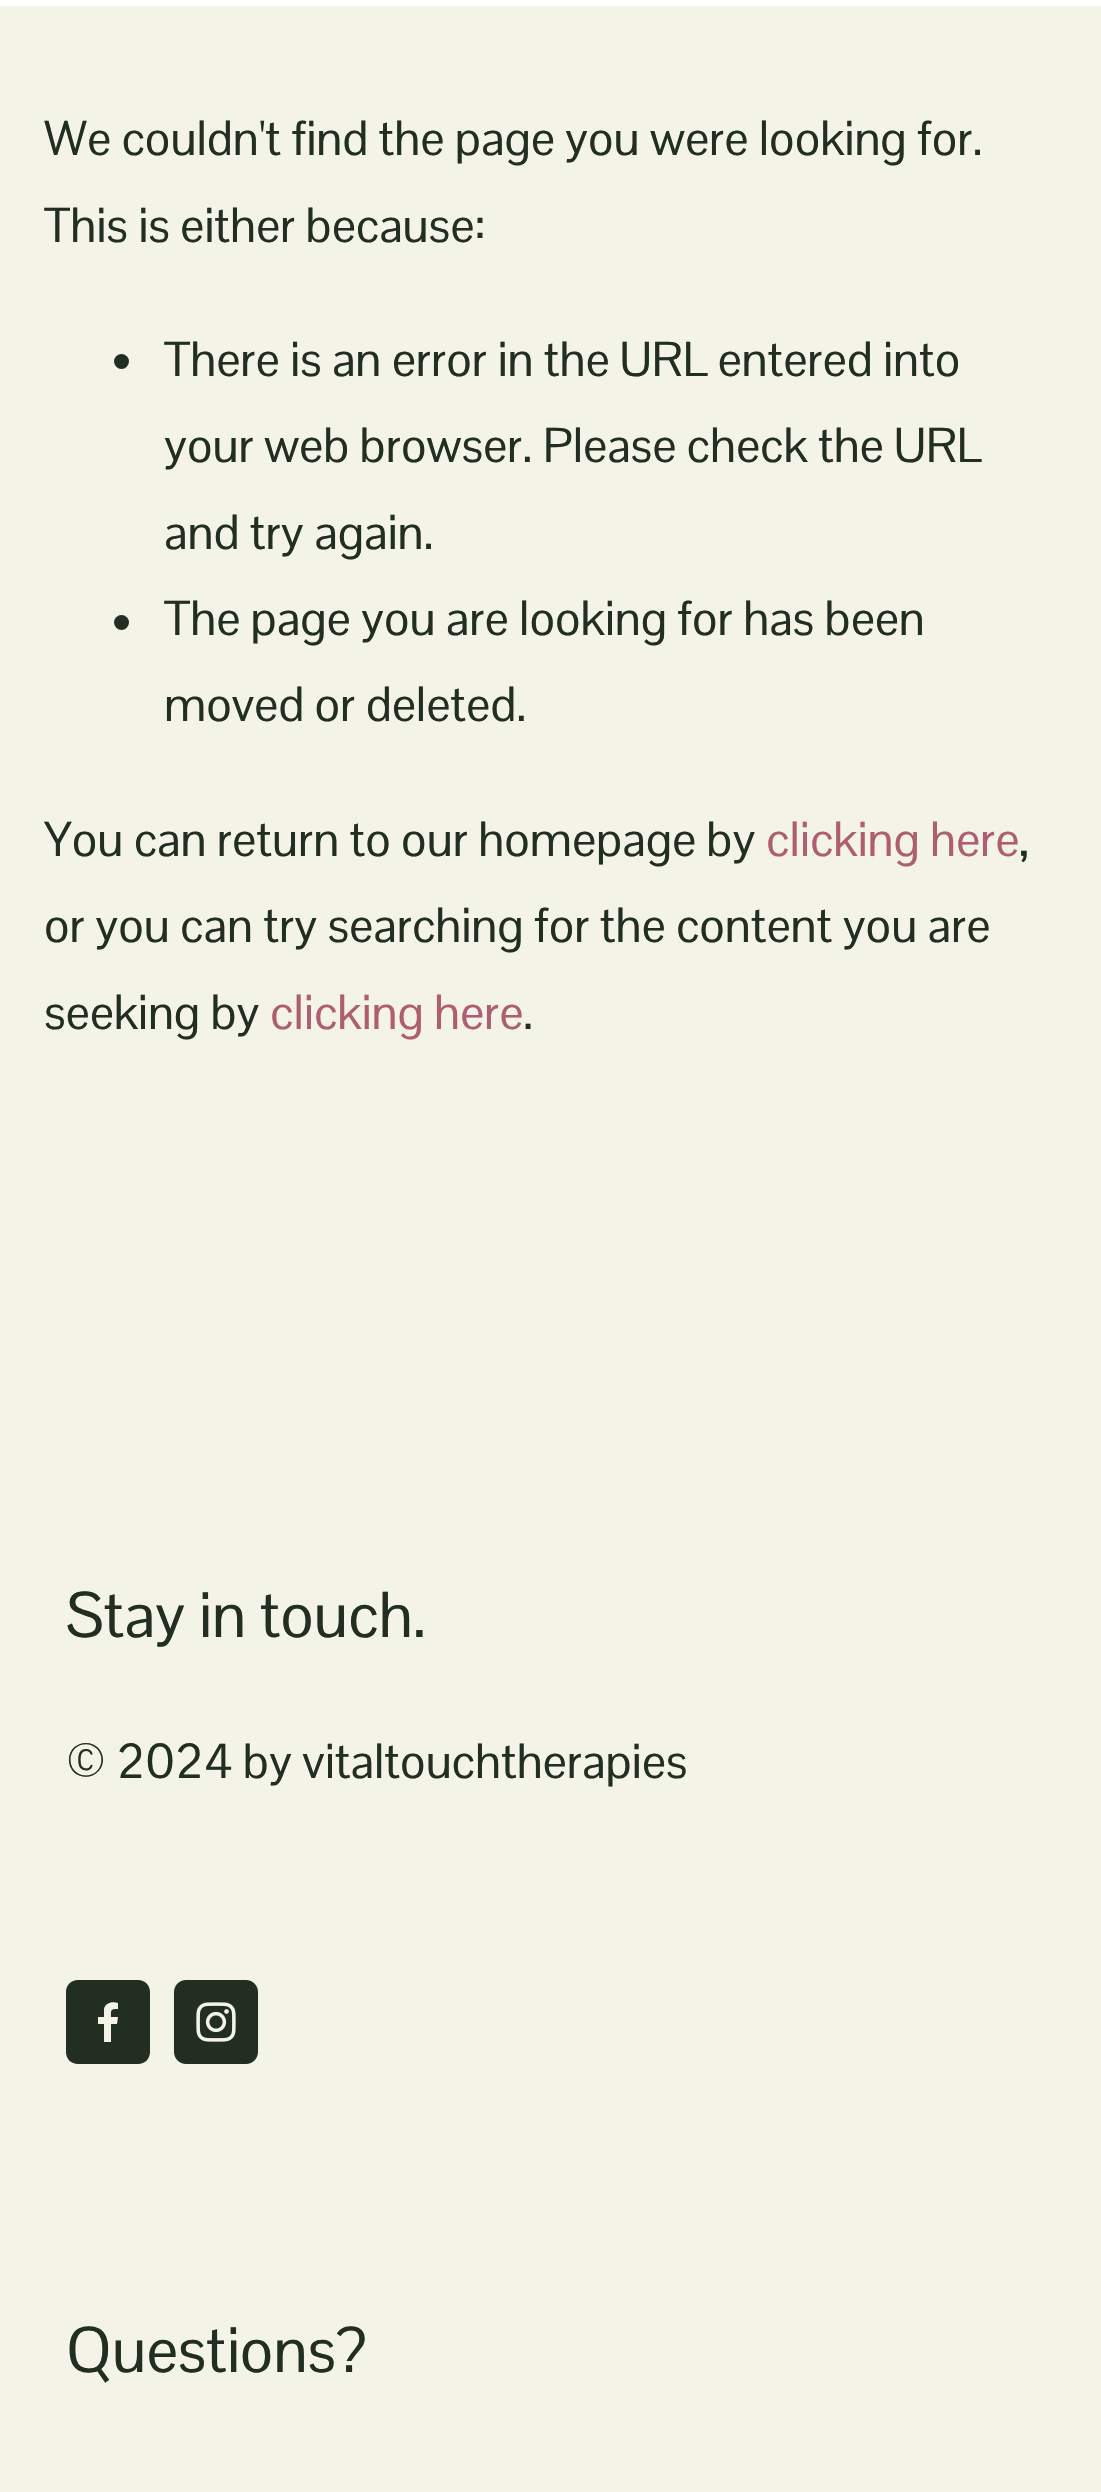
void draw(SkCanvas* canvas) {
	SkPaint fill;
	fill.setAntiAlias(true);
	auto makeFont = [&](const char* family, int weight, float size, bool italic = false) {
		SkFontStyle style(weight, SkFontStyle::kNormal_Width,
			italic ? SkFontStyle::kItalic_Slant : SkFontStyle::kUpright_Slant);
		SkFont result(fontMgr->matchFamilyStyle(family, style), size);
		result.setSubpixel(true);
		return result;
	};
	auto text = [&](const char* s, float x, float y, const SkFont& font) {
		canvas->drawString(s, x, y, font, fill);
	};
	auto box = [&](float l, float t, float r, float b) {
		canvas->drawRect(SkRect::MakeLTRB(l, t, r, b), fill);
	};
	auto picture = [&](const char* path, float l, float t, float r, float b) {
		auto image = SkImages::DeferredFromEncodedData(SkData::MakeFromFileName(path));
		canvas->drawImageRect(image, SkRect::MakeLTRB(l, t, r, b), SkSamplingOptions());
	};
	canvas->clear(0xFFF4F3E8);
	fill.setColor(0xFFFFFFFF);
	box(0, 0, 1101, 6);
	fill.setColor(0xFF212E21);
	canvas->drawCircle(121.5f, 361.5f, 7.5f, fill);
	canvas->drawCircle(121.5f, 622.5f, 7.5f, fill);
	canvas->drawPath(SkPathBuilder(SkPathFillType::kEvenOdd).moveTo(78, 1980).cubicTo(71, 1980, 66, 1985, 66, 1992).lineTo(66, 2052).cubicTo(66, 2059, 71, 2064, 78, 2064).lineTo(138, 2064).cubicTo(145, 2064, 150, 2059, 150, 2052).lineTo(150, 1992).cubicTo(150, 1985, 145, 1980, 138, 1980).close().moveTo(118, 2009).lineTo(118, 2003).cubicTo(112, 2001, 105, 2003, 104, 2009).lineTo(104, 2017).lineTo(98, 2017).lineTo(98, 2024).lineTo(104, 2024).lineTo(104, 2042).lineTo(111, 2042).lineTo(111, 2024).lineTo(117, 2024).lineTo(118, 2017).lineTo(111, 2017).cubicTo(111, 2010, 110, 2009, 118, 2009).close().detach(), fill);
	picture("image0.png", 174, 1980, 258, 2064);
	auto font1 = makeFont("Pontano Sans", 400, 48);
	text("We couldn't find the page you were looking for.", 44, 155, font1);
	text("This is either because:", 44, 242, font1);
	text("There is an error in the URL entered into", 164, 376, font1);
	text("your web browser. Please check the URL", 164, 462, font1);
	text("and try again.", 164, 549, font1);
	text("The page you are looking for has been", 164, 635, font1);
	text("moved or deleted.", 164, 721, font1);
	text("You can return to our homepage by", 44, 856, font1);
	fill.setColor(0xFFAE5E70);
	text("clicking here", 766, 856, font1);
	fill.setColor(0xFF212E21);
	text(",", 1019, 856, font1);
	text("or you can try searching for the content you are", 44, 942, font1);
	text("seeking by", 44, 1029, font1);
	fill.setColor(0xFFAE5E70);
	text("clicking here", 270, 1029, font1);
	fill.setColor(0xFF212E21);
	text(".", 523, 1029, font1);
	auto font2 = makeFont("Pontano Sans", 400, 63);
	text("Stay in touch.", 66, 1637, font2);
	text("© 2024 by vitaltouchtherapies", 66, 1778, font1);
	text("Questions?", 66, 2372, font2);
}
